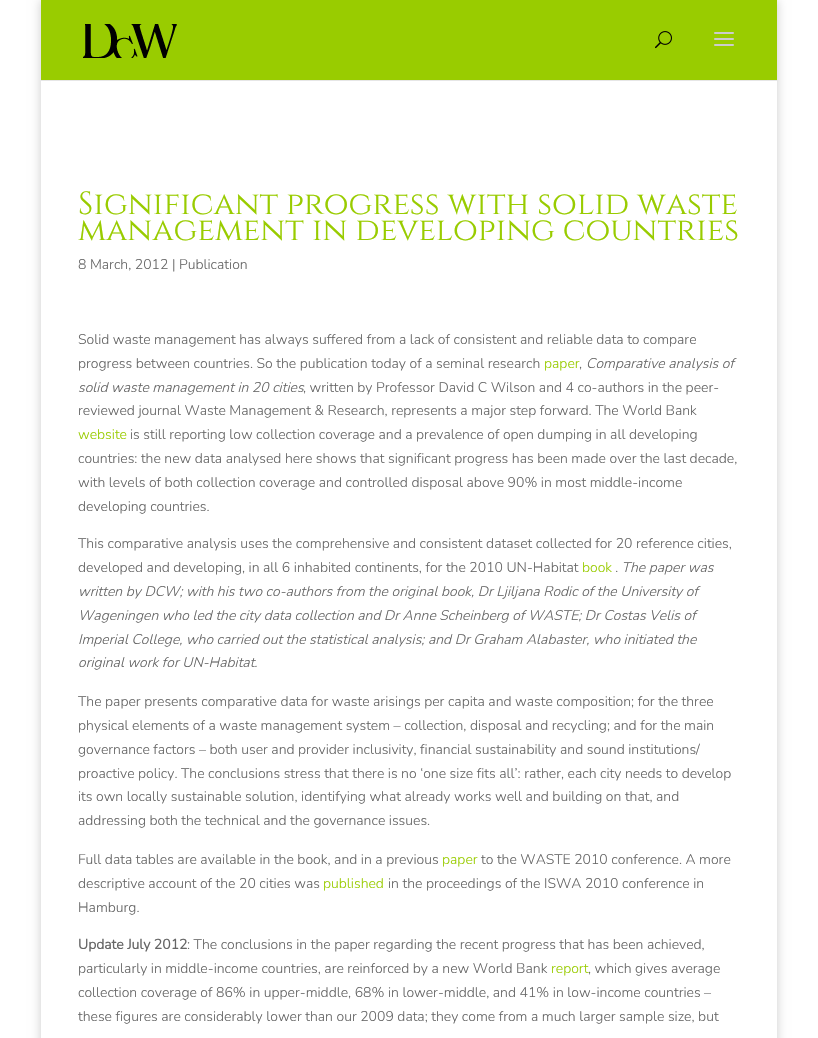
void draw(SkCanvas* canvas) {
	SkPaint fill;
	fill.setAntiAlias(true);
	auto makeFont = [&](const char* family, int weight, float size, bool italic = false) {
		SkFontStyle style(weight, SkFontStyle::kNormal_Width,
			italic ? SkFontStyle::kItalic_Slant : SkFontStyle::kUpright_Slant);
		SkFont result(fontMgr->matchFamilyStyle(family, style), size);
		result.setSubpixel(true);
		return result;
	};
	auto text = [&](const char* s, float x, float y, const SkFont& font) {
		canvas->drawString(s, x, y, font, fill);
	};
	auto box = [&](float l, float t, float r, float b) {
		canvas->drawRect(SkRect::MakeLTRB(l, t, r, b), fill);
	};
	auto picture = [&](const char* path, float l, float t, float r, float b) {
		auto image = SkImages::DeferredFromEncodedData(SkData::MakeFromFileName(path));
		canvas->drawImageRect(image, SkRect::MakeLTRB(l, t, r, b), SkSamplingOptions());
	};
	canvas->clear(0xFFFFFFFF);
	canvas->save();
	canvas->clipPath(SkPathBuilder(SkPathFillType::kEvenOdd).moveTo(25, 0).lineTo(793, 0).lineTo(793, 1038).lineTo(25, 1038).close().moveTo(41, 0).lineTo(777, 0).lineTo(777, 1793).lineTo(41, 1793).close().detach(), true);
	fill.setColor(0x33000000);
	fill.setMaskFilter(SkMaskFilter::MakeBlur(kNormal_SkBlurStyle, 5));
	canvas->drawRect(SkRect::MakeLTRB(41, 0, 777, 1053), fill);
	fill.setMaskFilter(nullptr);
	canvas->restore();
	fill.setColor(0xFFE6E6E6);
	box(41, 80, 777, 81);
	fill.setColor(0xFF99CC00);
	box(41, 0, 777, 80);
	picture("image0.png", 83, 24, 177, 58);
	picture("image1.png", 655, 31, 672, 49);
	picture("image2.png", 714, 32, 734, 46);
	auto font1 = makeFont("Cinzel", 400, 32);
	text("Significant progress with solid waste", 78, 214, font1);
	text("management in developing countries", 78, 240, font1);
	auto font2 = makeFont("Nunito", 200, 14);
	fill.setColor(0xFF666666);
	text("8 March, 2012 | Publication", 78, 269, font2);
	text("Solid waste management has always suffered from a lack of consistent and reliable data to compare", 78, 344, font2);
	text("progress between countries. So the publication today of a seminal research", 78, 368, font2);
	fill.setColor(0xFF99CC00);
	text("paper", 544, 368, font2);
	fill.setColor(0xFF666666);
	text(",", 579, 368, font2);
	auto font3 = makeFont("Nunito", 200, 14, true);
	text("Comparative analysis of", 586, 368, font3);
	text("solid waste management in 20 cities", 78, 392, font3);
	text(", written by Professor David C Wilson and 4 co-authors in the peer-", 303, 392, font2);
	text("reviewed journal Waste Management & Research, represents a major step forward. The World Bank", 78, 415, font2);
	fill.setColor(0xFF99CC00);
	text("website", 78, 439, font2);
	fill.setColor(0xFF666666);
	text("is still reporting low collection coverage and a prevalence of open dumping in all developing", 130, 439, font2);
	text("countries: the new data analysed here shows that significant progress has been made over the last decade,", 78, 463, font2);
	text("with levels of both collection coverage and controlled disposal above 90% in most middle-income", 78, 487, font2);
	text("developing countries.", 78, 511, font2);
	text("This comparative analysis uses the comprehensive and consistent dataset collected for 20 reference cities,", 78, 548, font2);
	text("developed and developing, in all 6 inhabited continents, for the 2010 UN-Habitat", 78, 572, font2);
	fill.setColor(0xFF99CC00);
	text("book", 582, 572, font2);
	fill.setColor(0xFF666666);
	text(". The paper was", 615, 572, font3);
	text("written by DCW; with his two co-authors from the original book, Dr Ljiljana Rodic of the University of", 78, 596, font3);
	text("Wageningen who led the city data collection and Dr Anne Scheinberg of WASTE; Dr Costas Velis of", 78, 620, font3);
	text("Imperial College, who carried out the statistical analysis; and Dr Graham Alabaster, who initiated the", 78, 644, font3);
	text("original work for UN-Habitat.", 78, 667, font3);
	text("The paper presents comparative data for waste arisings per capita and waste composition; for the three", 78, 706, font2);
	text("physical elements of a waste management system – collection, disposal and recycling; and for the main", 78, 730, font2);
	text("governance factors – both user and provider inclusivity, financial sustainability and sound institutions/", 78, 754, font2);
	text("proactive policy. The conclusions stress that there is no ‘one size fits all’: rather, each city needs to develop", 78, 778, font2);
	text("its own locally sustainable solution, identifying what already works well and building on that, and", 78, 801, font2);
	text("addressing both the technical and the governance issues.", 78, 825, font2);
	text("Full data tables are available in the book, and in a previous", 78, 864, font2);
	fill.setColor(0xFF99CC00);
	text("paper", 442, 864, font2);
	fill.setColor(0xFF666666);
	text("to the WASTE 2010 conference. A more", 481, 864, font2);
	text("descriptive account of the 20 cities was", 78, 888, font2);
	fill.setColor(0xFF99CC00);
	text("published", 323, 888, font2);
	fill.setColor(0xFF666666);
	text("in the proceedings of the ISWA 2010 conference in", 388, 888, font2);
	text("Hamburg.", 78, 912, font2);
	auto font4 = makeFont("Nunito", 700, 14);
	text("Update July 2012", 78, 949, font4);
	text(": The conclusions in the paper regarding the recent progress that has been achieved,", 187, 949, font2);
	text("particularly in middle-income countries, are reinforced by a new World Bank", 78, 973, font2);
	fill.setColor(0xFF99CC00);
	text("report", 551, 973, font2);
	fill.setColor(0xFF666666);
	text(", which gives average", 588, 973, font2);
	text("collection coverage of 86% in upper-middle, 68% in lower-middle, and 41% in low-income countries –", 78, 997, font2);
	text("these figures are considerably lower than our 2009 data; they come from a much larger sample size, but", 78, 1021, font2);
}
